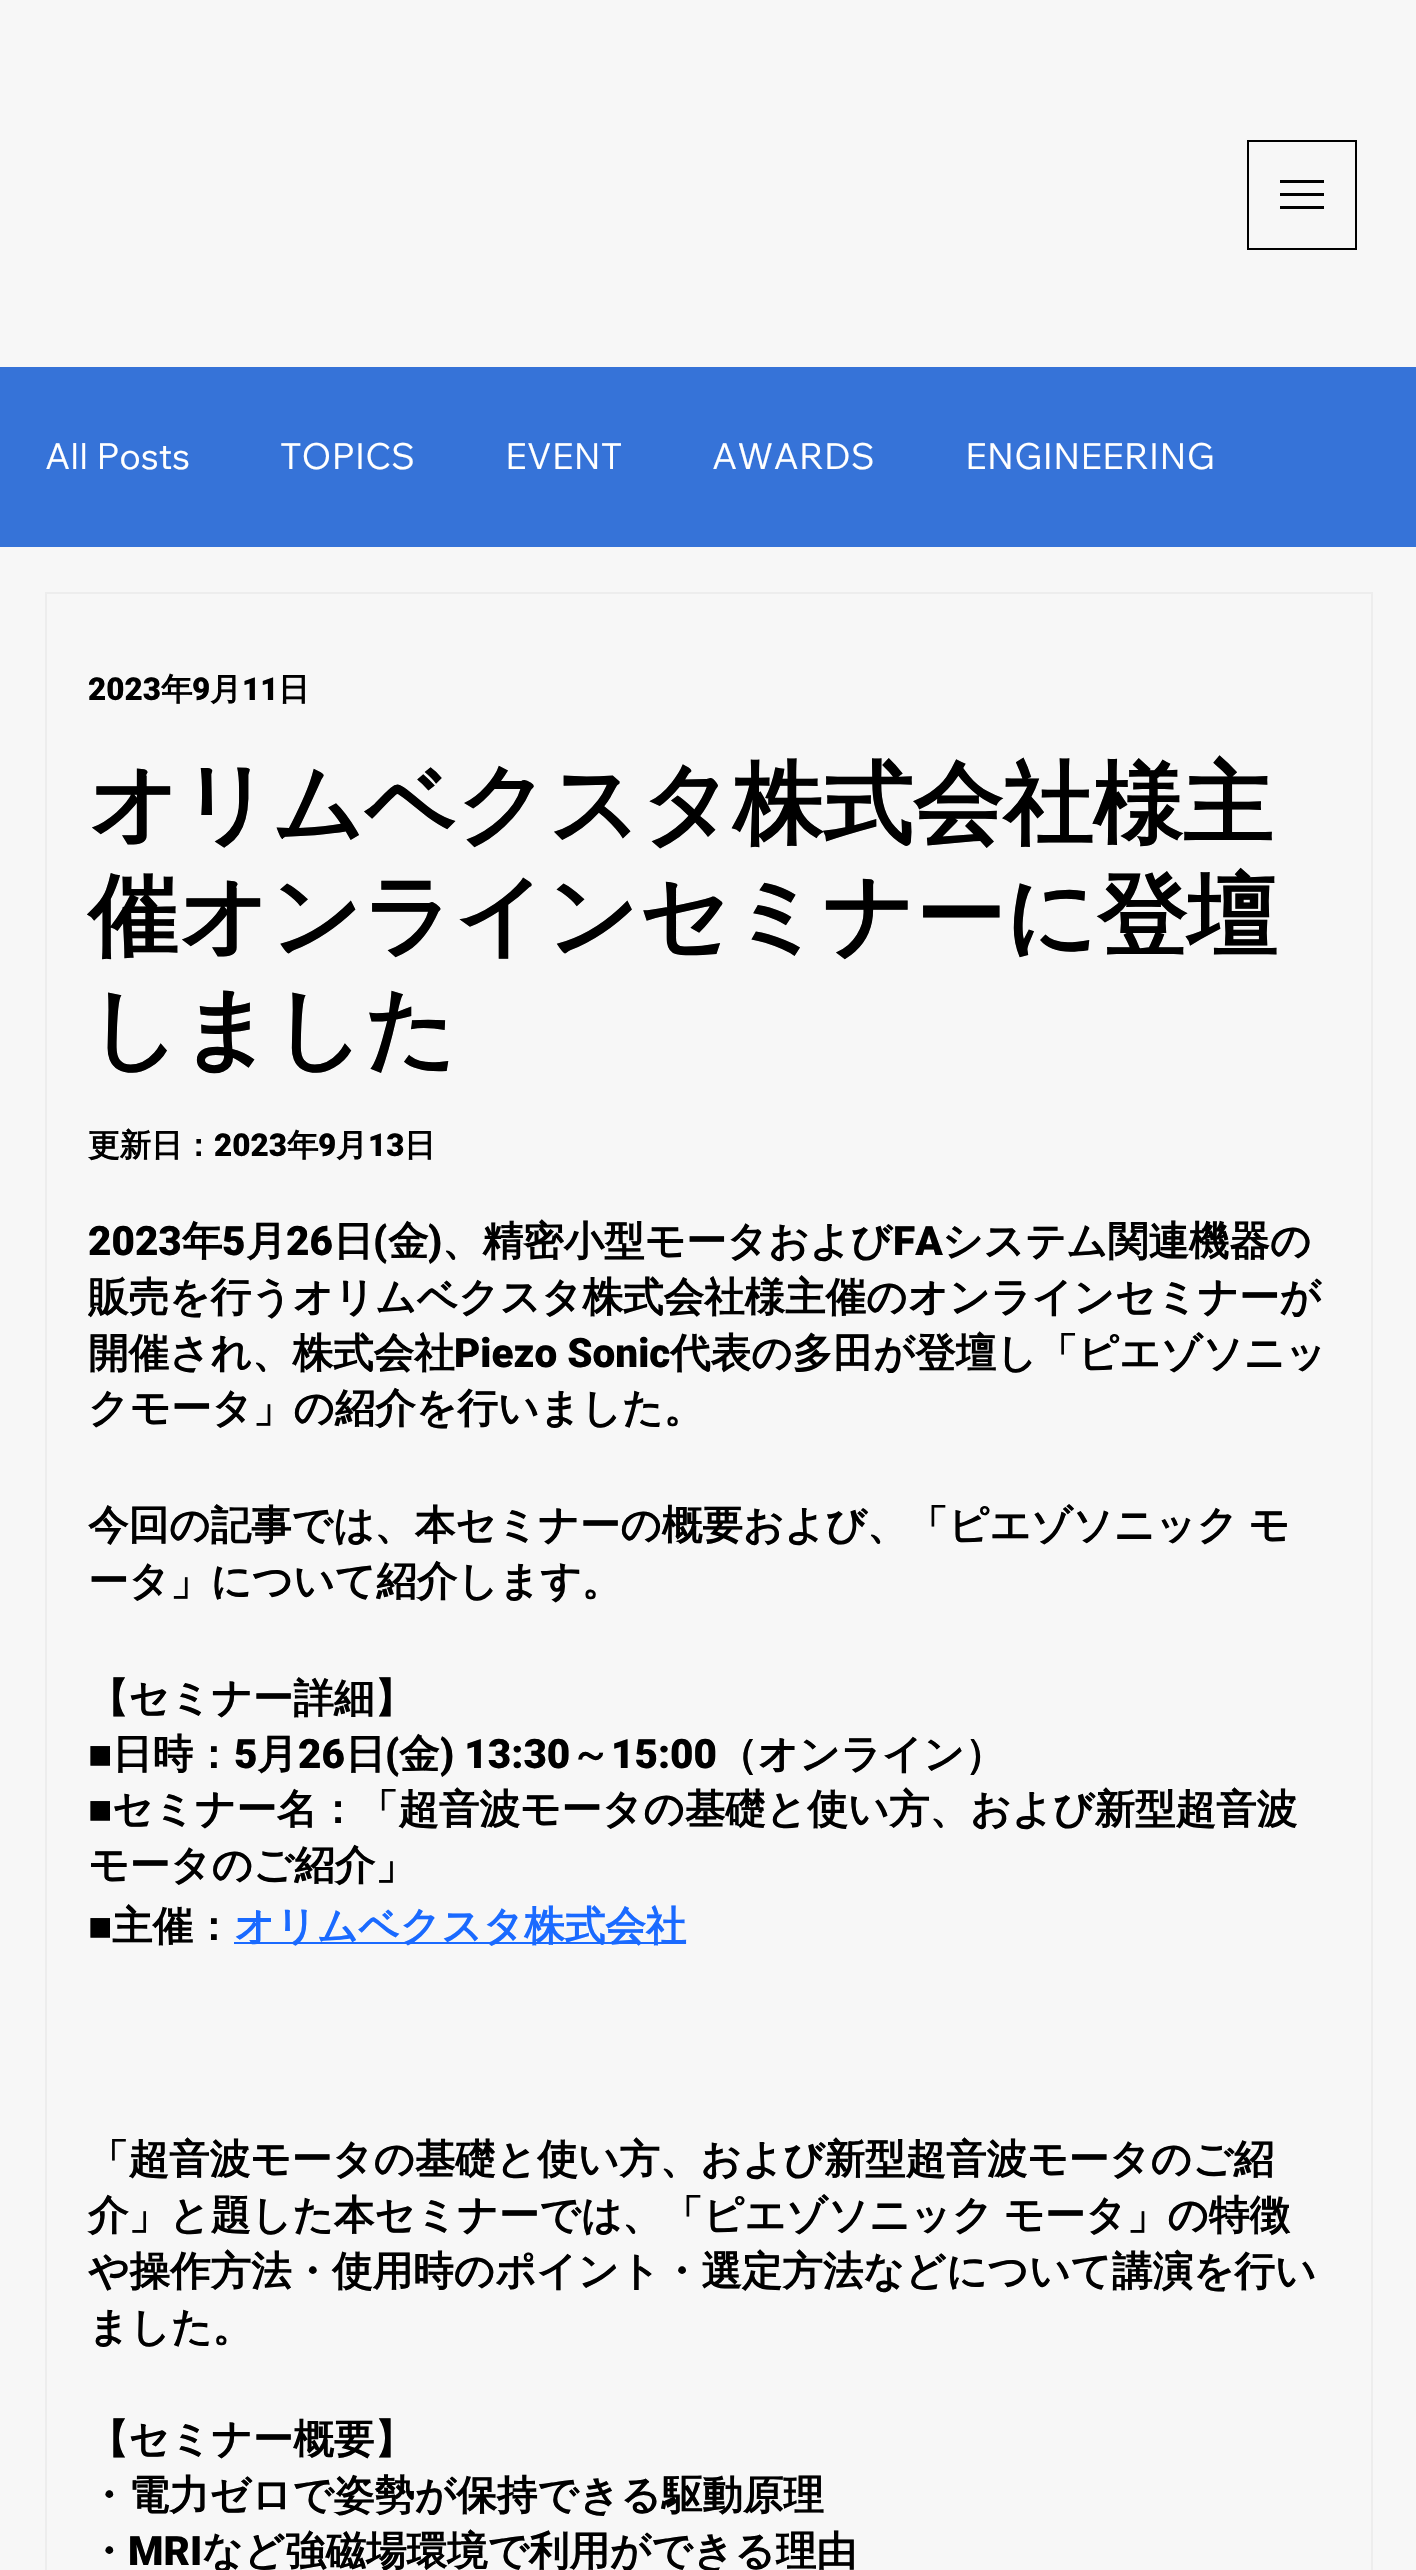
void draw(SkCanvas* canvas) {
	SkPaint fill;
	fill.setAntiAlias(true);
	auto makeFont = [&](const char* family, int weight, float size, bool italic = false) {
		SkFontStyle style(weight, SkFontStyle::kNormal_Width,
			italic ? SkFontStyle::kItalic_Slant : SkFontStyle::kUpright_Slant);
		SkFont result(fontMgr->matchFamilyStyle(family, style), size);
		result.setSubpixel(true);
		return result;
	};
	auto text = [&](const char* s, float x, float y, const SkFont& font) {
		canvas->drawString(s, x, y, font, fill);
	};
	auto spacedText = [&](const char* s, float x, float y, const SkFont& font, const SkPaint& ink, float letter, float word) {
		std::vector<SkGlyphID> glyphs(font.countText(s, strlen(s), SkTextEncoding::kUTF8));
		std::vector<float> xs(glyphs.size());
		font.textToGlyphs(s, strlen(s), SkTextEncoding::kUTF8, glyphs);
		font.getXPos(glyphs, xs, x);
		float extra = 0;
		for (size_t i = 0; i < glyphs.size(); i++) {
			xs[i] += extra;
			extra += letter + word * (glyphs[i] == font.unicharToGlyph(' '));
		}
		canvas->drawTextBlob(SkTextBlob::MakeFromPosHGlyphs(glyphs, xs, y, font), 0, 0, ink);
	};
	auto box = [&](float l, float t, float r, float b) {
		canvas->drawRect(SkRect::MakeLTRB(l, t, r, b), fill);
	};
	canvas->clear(0xFFF7F7F7);
	fill.setStyle(SkPaint::kStroke_Style);
	fill.setStrokeWidth(2);
	fill.setColor(0xFF000000);
	canvas->drawRect(SkRect::MakeLTRB(1248, 141, 1356, 249), fill);
	fill.setStyle(SkPaint::kFill_Style);
	box(1280, 180, 1324, 183);
	box(1280, 193, 1324, 196);
	box(1280, 206, 1324, 209);
	fill.setColor(0xFF3673D8);
	box(0, 367, 1416, 547);
	fill.setStyle(SkPaint::kStroke_Style);
	fill.setColor(0xFFEDEDED);
	canvas->drawRect(SkRect::MakeLTRB(46, 593, 1372, 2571), fill);
	fill.setStyle(SkPaint::kFill_Style);
	fill.setColor(0xFF1A6AFF);
	box(234, 1942, 686, 1944);
	auto font1 = makeFont("Wix Madefor Text", 400, 36);
	fill.setColor(0xFFFFFFFF);
	text("All Posts", 45, 469, font1);
	text("TOPICS", 280, 469, font1);
	text("EVENT", 505, 469, font1);
	text("AWARDS", 712, 469, font1);
	text("ENGINEERING", 965, 469, font1);
	auto font2 = makeFont("Roboto", 900, 31.5f);
	fill.setColor(0xFF000000);
	text("2023", 88, 700, font2);
	auto font3 = makeFont("WenQuanYi Zen Hei", 700, 31.5f);
	text("年", 161, 700, font3);
	text("9", 192, 700, font2);
	text("月", 210, 700, font3);
	text("11", 242, 700, font2);
	text("日", 278, 700, font3);
	auto font4 = makeFont("WenQuanYi Zen Hei", 700, 90);
	text("オリムベクスタ株式会社様主", 88, 835, font4);
	text("催オンラインセミナーに登壇", 88, 947, font4);
	text("しました", 88, 1060, font4);
	text("更新日：", 88, 1156, font3);
	text("2023", 214, 1156, font2);
	text("年", 287, 1156, font3);
	text("9", 318, 1156, font2);
	text("月", 336, 1156, font3);
	text("13", 368, 1156, font2);
	text("日", 404, 1156, font3);
	auto font5 = makeFont("Roboto", 900, 40.5f);
	text("2023", 88, 1255, font5);
	auto font6 = makeFont("WenQuanYi Zen Hei", 700, 40.5f);
	text("年", 182, 1255, font6);
	text("5", 222, 1255, font5);
	text("月", 246, 1255, font6);
	text("26", 286, 1255, font5);
	text("日", 333, 1255, font6);
	text("(", 373, 1255, font5);
	text("金", 388, 1255, font6);
	text(")", 428, 1255, font5);
	text("、精密小型モータおよび", 442, 1255, font6);
	text("FA", 893, 1255, font5);
	text("システム関連機器の", 942, 1255, font6);
	text("販売を行うオリムベクスタ株式会社様主催のオンラインセミナーが", 88, 1311, font6);
	text("開催され、株式会社", 88, 1367, font6);
	text("Piezo Sonic", 454, 1367, font5);
	text("代表の多田が登壇し「ピエゾソニッ", 670, 1367, font6);
	text("クモータ」の紹介を行いました。", 88, 1422, font6);
	spacedText("今回の記事では、本セミナーの概要および、「ピエゾソニック モ", 88, 1539, font6, fill, 0, -2);
	text("ータ」について紹介します。", 88, 1595, font6);
	text("【セミナー詳細】", 88, 1712, font6);
	auto font7 = makeFont("Liberation Sans", 700, 40.5f);
	text("■", 88, 1768, font7);
	text("日時：", 112, 1768, font6);
	text("5", 234, 1768, font5);
	text("月", 257, 1768, font6);
	text("26", 298, 1768, font5);
	text("日", 345, 1768, font6);
	text("(", 385, 1768, font5);
	text("金", 399, 1768, font6);
	text(") 13:30", 440, 1768, font5);
	text("～", 570, 1768, font6);
	text("15:00", 611, 1768, font5);
	text("（オンライン）", 717, 1768, font6);
	text("■", 88, 1823, font7);
	text("セミナー名：「超音波モータの基礎と使い方、および新型超音波", 112, 1823, font6);
	text("モータのご紹介」", 88, 1879, font6);
	text("■", 88, 1940, font7);
	text("主催：", 112, 1940, font6);
	fill.setColor(0xFF1A6AFF);
	text("オリムベクスタ株式会社", 234, 1940, font6);
	fill.setColor(0xFF000000);
	text("「超音波モータの基礎と使い方、および新型超音波モータのご紹", 88, 2173, font6);
	spacedText("介」と題した本セミナーでは、「ピエゾソニック モータ」の特徴", 88, 2229, font6, fill, 0, -2);
	text("や操作方法・使用時のポイント・選定方法などについて講演を行い", 88, 2285, font6);
	text("ました。", 88, 2341, font6);
	text("【セミナー概要】", 88, 2453, font6);
	text("・電力ゼロで姿勢が保持できる駆動原理", 88, 2509, font6);
	text("・", 88, 2565, font6);
	text("MRI", 128, 2565, font5);
	text("など強磁場環境で利用ができる理由", 202, 2565, font6);
}
